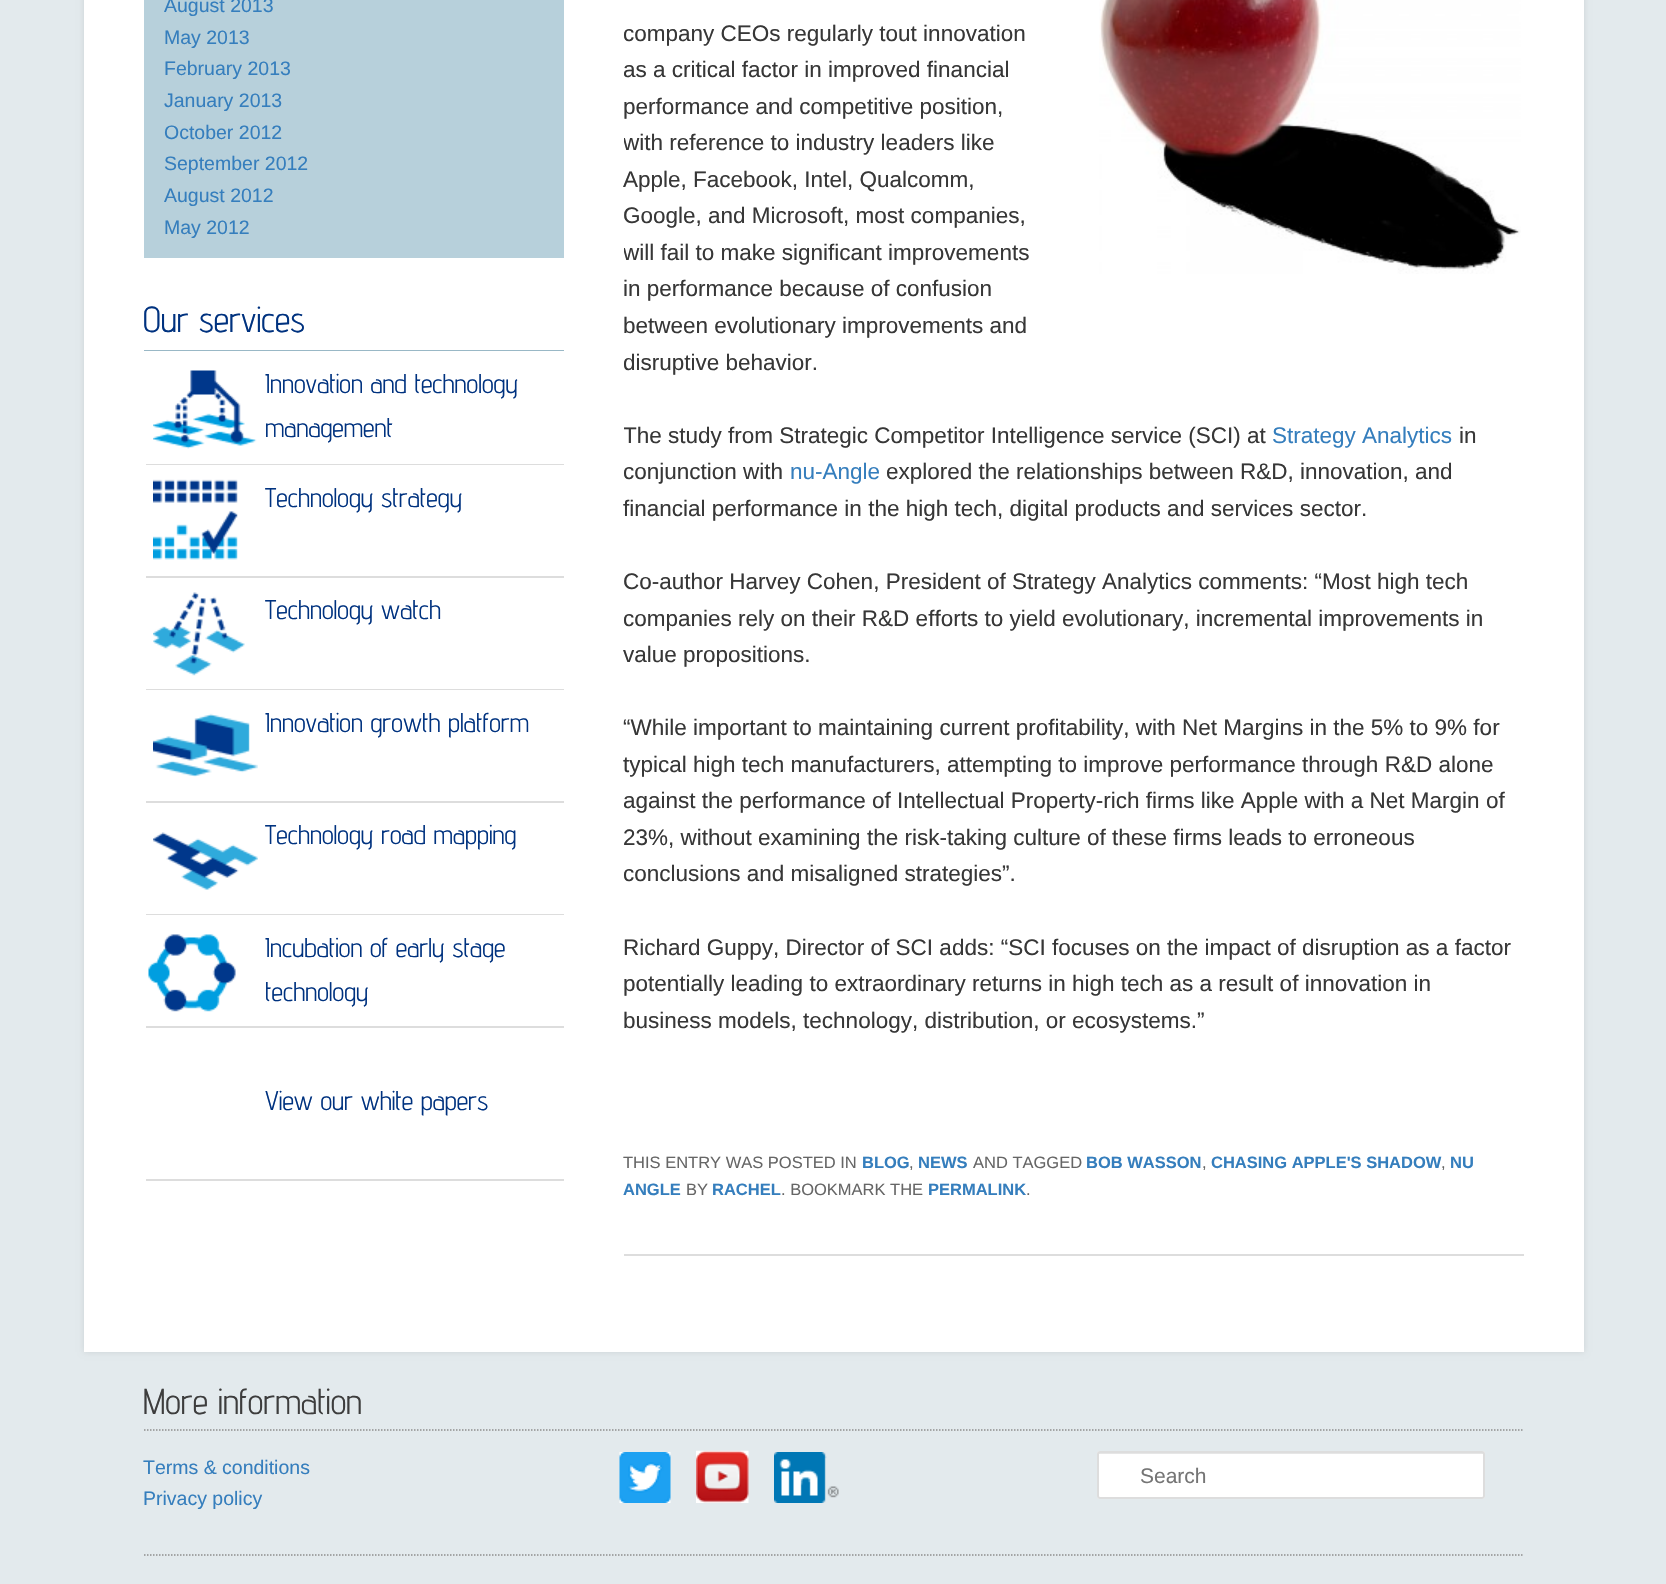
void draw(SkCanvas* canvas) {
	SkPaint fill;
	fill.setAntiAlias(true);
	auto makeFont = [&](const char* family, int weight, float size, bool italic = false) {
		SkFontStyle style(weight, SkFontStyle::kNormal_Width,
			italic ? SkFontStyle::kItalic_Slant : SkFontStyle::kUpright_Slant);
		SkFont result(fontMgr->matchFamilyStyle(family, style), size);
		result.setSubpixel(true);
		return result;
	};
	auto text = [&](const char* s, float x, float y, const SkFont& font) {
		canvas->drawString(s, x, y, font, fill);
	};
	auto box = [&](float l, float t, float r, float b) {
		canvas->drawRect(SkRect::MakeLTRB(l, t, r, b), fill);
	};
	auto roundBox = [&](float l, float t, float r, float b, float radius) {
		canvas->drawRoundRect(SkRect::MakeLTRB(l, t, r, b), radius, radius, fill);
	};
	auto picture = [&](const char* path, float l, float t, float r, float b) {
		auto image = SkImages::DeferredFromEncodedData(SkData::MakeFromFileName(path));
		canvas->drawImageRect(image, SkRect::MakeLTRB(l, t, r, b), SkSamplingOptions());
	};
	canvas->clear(0xFFE3EAED);
	fill.setColor(0x1A000000);
	fill.setMaskFilter(SkMaskFilter::MakeBlur(kNormal_SkBlurStyle, 3));
	canvas->drawRect(SkRect::MakeLTRB(84, -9, 1584, 1352), fill);
	fill.setMaskFilter(nullptr);
	fill.setColor(0xFFFFFFFF);
	box(84, 0, 1584, 1352);
	fill.setColor(0xFFB7D0DB);
	box(144, 0, 564, 258);
	fill.setColor(0xFF99B8C6);
	box(144, 350, 564, 351);
	picture("image0.png", 153, 370, 257, 449);
	fill.setColor(0xFFDDDDDD);
	box(144, 464, 564, 465);
	fill.setColor(0xFFFFFFFF);
	box(144, 464, 146, 465);
	picture("image1.png", 153, 479, 238, 560);
	fill.setColor(0xFFDDDDDD);
	box(144, 576, 564, 578);
	fill.setColor(0xFFFFFFFF);
	box(144, 576, 146, 578);
	picture("image2.png", 153, 592, 245, 676);
	fill.setColor(0xFFDDDDDD);
	box(144, 689, 564, 690);
	fill.setColor(0xFFFFFFFF);
	box(144, 689, 146, 690);
	picture("image3.png", 153, 713, 258, 777);
	fill.setColor(0xFFDDDDDD);
	box(144, 801, 564, 803);
	fill.setColor(0xFFFFFFFF);
	box(144, 801, 146, 803);
	picture("image4.png", 153, 832, 258, 890);
	fill.setColor(0xFFDDDDDD);
	box(144, 914, 564, 915);
	fill.setColor(0xFFFFFFFF);
	box(144, 914, 146, 915);
	picture("image5.png", 148, 934, 236, 1012);
	fill.setColor(0xFFDDDDDD);
	box(144, 1026, 564, 1028);
	fill.setColor(0xFFFFFFFF);
	box(144, 1026, 146, 1028);
	fill.setColor(0xFFDDDDDD);
	box(144, 1179, 564, 1181);
	fill.setColor(0xFFFFFFFF);
	box(144, 1179, 146, 1181);
	fill.setColor(0xFFDDDDDD);
	box(624, 1254, 1524, 1256);
	picture("image6.png", 1099, 0, 1521, 274);
	fill.setStyle(SkPaint::kStroke_Style);
	fill.setStrokeWidth(1.5f);
	fill.setColor(0xFF8E8E8E);
	fill.setPathEffect(SkDashPathEffect::Make({{1.5f, 1.5f}}, 0));
	canvas->drawPath(SkPathBuilder().moveTo(144, 1430).lineTo(1524, 1430).detach(), fill);
	fill.setPathEffect(nullptr);
	picture("image7.png", 619, 1452, 671, 1503);
	picture("image8.png", 696, 1450, 749, 1503);
	picture("image9.png", 774, 1452, 839, 1503);
	fill.setStyle(SkPaint::kFill_Style);
	fill.setColor(0xFFFFFFFF);
	roundBox(1097, 1451, 1485, 1499, 3);
	fill.setColor(0xFFE6E6E6);
	canvas->drawPath(SkPathBuilder().moveTo(1100, 1452).cubicTo(1098, 1452, 1098, 1453, 1098, 1454).lineTo(1483, 1454).lineTo(1484, 1456).cubicTo(1484, 1454, 1484, 1452, 1482, 1452).close().detach(), fill);
	fill.setStyle(SkPaint::kStroke_Style);
	fill.setStrokeWidth(2);
	fill.setColor(0xFFDDDDDD);
	canvas->drawRoundRect(SkRect::MakeLTRB(1098, 1452, 1484, 1498), 2, 2, fill);
	fill.setStrokeWidth(1.5f);
	fill.setColor(0xFF8E8E8E);
	fill.setPathEffect(SkDashPathEffect::Make({{1.5f, 1.5f}}, 0));
	canvas->drawPath(SkPathBuilder().moveTo(144, 1555).lineTo(1524, 1555).detach(), fill);
	fill.setPathEffect(nullptr);
	auto font1 = makeFont("Liberation Sans", 400, 19.5f);
	fill.setStyle(SkPaint::kFill_Style);
	fill.setColor(0xFF357EBD);
	text("August 2013", 164, 12, font1);
	text("May 2013", 164, 44, font1);
	text("February 2013", 164, 75, font1);
	text("January 2013", 164, 107, font1);
	text("October 2012", 164, 139, font1);
	text("September 2012", 164, 170, font1);
	text("August 2012", 164, 202, font1);
	text("May 2012", 164, 234, font1);
	auto font2 = makeFont("Advent Pro", 400, 36);
	fill.setColor(0xFF00327F);
	text("Our services", 143, 332, font2);
	auto font3 = makeFont("Advent Pro", 400, 27);
	text("Innovation and technology", 265, 393, font3);
	text("management", 265, 437, font3);
	text("Technology strategy", 265, 507, font3);
	text("Technology watch", 265, 619, font3);
	text("Innovation growth platform", 265, 732, font3);
	text("Technology road mapping", 265, 844, font3);
	text("Incubation of early stage", 265, 957, font3);
	text("technology", 265, 1001, font3);
	text("View our white papers", 265, 1110, font3);
	auto font4 = makeFont("Liberation Sans", 400, 22.5f);
	fill.setColor(0xFF373737);
	text("company CEOs regularly tout innovation", 623, 41, font4);
	text("as a critical factor in improved financial", 623, 77, font4);
	text("performance and competitive position,", 623, 114, font4);
	canvas->save();
	canvas->clipRect(SkRect::MakeLTRB(624, 0, 1524, 1254));
	text("with reference to industry leaders like", 623, 150, font4);
	canvas->restore();
	text("Apple, Facebook, Intel, Qualcomm,", 623, 187, font4);
	text("Google, and Microsoft, most companies,", 623, 223, font4);
	canvas->save();
	canvas->clipRect(SkRect::MakeLTRB(624, 0, 1524, 1254));
	text("will fail to make significant improvements", 623, 260, font4);
	canvas->restore();
	text("in performance because of confusion", 623, 296, font4);
	text("between evolutionary improvements and", 623, 333, font4);
	text("disruptive behavior.", 623, 370, font4);
	canvas->save();
	canvas->clipRect(SkRect::MakeLTRB(624, 0, 1524, 1254));
	text("The study from Strategic Competitor Intelligence service (SCI) at", 623, 443, font4);
	canvas->restore();
	fill.setColor(0xFF357EBD);
	text("Strategy Analytics", 1272, 443, font4);
	fill.setColor(0xFF373737);
	text("in", 1459, 443, font4);
	text("conjunction with", 623, 479, font4);
	fill.setColor(0xFF357EBD);
	text("nu-Angle", 790, 479, font4);
	fill.setColor(0xFF373737);
	text("explored the relationships between R&D, innovation, and", 886, 479, font4);
	text("financial performance in the high tech, digital products and services sector.", 623, 516, font4);
	text("Co-author Harvey Cohen, President of Strategy Analytics comments: “Most high tech", 623, 589, font4);
	text("companies rely on their R&D efforts to yield evolutionary, incremental improvements in", 623, 626, font4);
	text("value propositions.", 623, 662, font4);
	text("“While important to maintaining current profitability, with Net Margins in the 5% to 9% for", 623, 735, font4);
	text("typical high tech manufacturers, attempting to improve performance through R&D alone", 623, 772, font4);
	text("against the performance of Intellectual Property-rich firms like Apple with a Net Margin of", 623, 808, font4);
	text("23%, without examining the risk-taking culture of these firms leads to erroneous", 623, 845, font4);
	text("conclusions and misaligned strategies”.", 623, 881, font4);
	text("Richard Guppy, Director of SCI adds: “SCI focuses on the impact of disruption as a factor", 623, 955, font4);
	text("potentially leading to extraordinary returns in high tech as a result of innovation in", 623, 991, font4);
	text("business models, technology, distribution, or ecosystems.”", 623, 1028, font4);
	auto font5 = makeFont("Liberation Sans", 400, 16.5f);
	fill.setColor(0xFF666666);
	text("THIS ENTRY WAS POSTED IN", 623, 1168, font5);
	auto font6 = makeFont("Liberation Sans", 700, 16.5f);
	fill.setColor(0xFF357EBD);
	text("BLOG", 862, 1168, font6);
	fill.setColor(0xFF666666);
	text(",", 909, 1168, font5);
	fill.setColor(0xFF357EBD);
	text("NEWS", 918, 1168, font6);
	fill.setColor(0xFF666666);
	text("AND TAGGED", 973, 1168, font5);
	fill.setColor(0xFF357EBD);
	text("BOB WASSON", 1086, 1168, font6);
	fill.setColor(0xFF666666);
	text(",", 1202, 1168, font5);
	fill.setColor(0xFF357EBD);
	text("CHASING APPLE'S SHADOW", 1211, 1168, font6);
	fill.setColor(0xFF666666);
	text(",", 1441, 1168, font5);
	fill.setColor(0xFF357EBD);
	text("NU", 1450, 1168, font6);
	text("ANGLE", 623, 1195, font6);
	fill.setColor(0xFF666666);
	text("BY", 686, 1195, font5);
	fill.setColor(0xFF357EBD);
	text("RACHEL", 712, 1195, font6);
	fill.setColor(0xFF666666);
	text(". BOOKMARK THE", 781, 1195, font5);
	fill.setColor(0xFF357EBD);
	text("PERMALINK", 928, 1195, font6);
	fill.setColor(0xFF666666);
	text(".", 1026, 1195, font5);
	fill.setColor(0xFF3D3D3D);
	text("More information", 143, 1414, font2);
	fill.setColor(0xFF357EBD);
	text("Terms & conditions", 143, 1474, font1);
	text("Privacy policy", 143, 1505, font1);
	auto font7 = makeFont("Liberation Sans", 400, 21);
	fill.setColor(0xFF757575);
	text("Search", 1140, 1483, font7);
}
